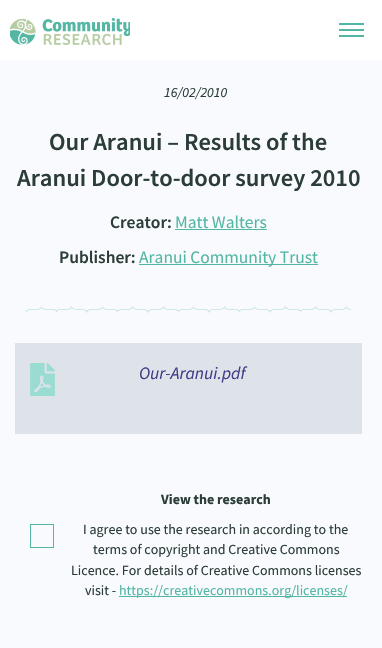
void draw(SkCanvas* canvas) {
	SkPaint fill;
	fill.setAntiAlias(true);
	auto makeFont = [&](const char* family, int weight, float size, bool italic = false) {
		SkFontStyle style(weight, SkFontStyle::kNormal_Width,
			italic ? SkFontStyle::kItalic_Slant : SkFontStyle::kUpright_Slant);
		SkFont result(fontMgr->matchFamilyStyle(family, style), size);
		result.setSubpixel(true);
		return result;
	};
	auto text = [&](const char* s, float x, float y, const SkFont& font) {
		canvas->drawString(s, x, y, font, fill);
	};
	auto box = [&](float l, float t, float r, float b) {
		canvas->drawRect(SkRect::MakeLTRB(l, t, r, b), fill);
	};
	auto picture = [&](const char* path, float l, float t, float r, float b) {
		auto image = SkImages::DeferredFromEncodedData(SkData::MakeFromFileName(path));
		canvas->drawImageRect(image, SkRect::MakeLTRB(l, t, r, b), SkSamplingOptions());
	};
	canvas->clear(0xFFFFFFFF);
	picture("image0.png", 10, 18, 130, 45);
	fill.setColor(0xFF53B6A4);
	box(339, 23, 364, 25);
	box(339, 29, 364, 31);
	box(339, 35, 364, 37);
	fill.setColor(0xFFF8FAFD);
	box(0, 60, 382, 648);
	fill.setColor(0xFF53B6A4);
	box(175, 229, 267, 230);
	box(139, 264, 318, 265);
	picture("image1.png", 26, 306, 351, 313);
	fill.setColor(0xFFDDE3E8);
	box(15, 343, 362, 434);
	picture("image2.png", 30, 363, 55, 396);
	fill.setStyle(SkPaint::kStroke_Style);
	fill.setStrokeWidth(1);
	fill.setColor(0xFF53B6A4);
	canvas->drawRect(SkRect::MakeLTRB(30.5f, 524.5f, 53.5f, 547.5f), fill);
	fill.setStyle(SkPaint::kFill_Style);
	box(119, 596, 347, 597);
	auto font1 = makeFont("Source Sans Pro", 400, 14, true);
	fill.setColor(0xFF2C3D39);
	text("16/02/2010", 164, 97, font1);
	auto font2 = makeFont("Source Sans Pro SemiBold", 600, 24.5f);
	text("Our Aranui – Results of the", 49, 150, font2);
	text("Aranui Door-to-door survey 2010", 17, 186, font2);
	auto font3 = makeFont("Source Sans Pro SemiBold", 600, 17.5f);
	text("Creator:", 110, 228, font3);
	auto font4 = makeFont("Source Sans Pro", 400, 17.5f);
	fill.setColor(0xFF53B6A4);
	text("Matt Walters", 175, 228, font4);
	fill.setColor(0xFF2C3D39);
	text("Publisher:", 59, 263, font3);
	fill.setColor(0xFF53B6A4);
	text("Aranui Community Trust", 139, 263, font4);
	auto font5 = makeFont("Source Sans Pro", 400, 17.5f, true);
	fill.setColor(0xFF403E89);
	text("Our-Aranui.pdf", 139, 379, font5);
	auto font6 = makeFont("Source Sans Pro", 700, 14);
	fill.setColor(0xFF2C3D39);
	text("View the research", 161, 504, font6);
	auto font7 = makeFont("Source Sans Pro", 400, 14);
	text("I agree to use the research in according to the", 83, 534, font7);
	text("terms of copyright and Creative Commons", 93, 554, font7);
	text("Licence. For details of Creative Commons licenses", 71, 575, font7);
	text("visit -", 85, 595, font7);
	fill.setColor(0xFF53B6A4);
	text("https://creativecommons.org/licenses/", 119, 595, font7);
}
